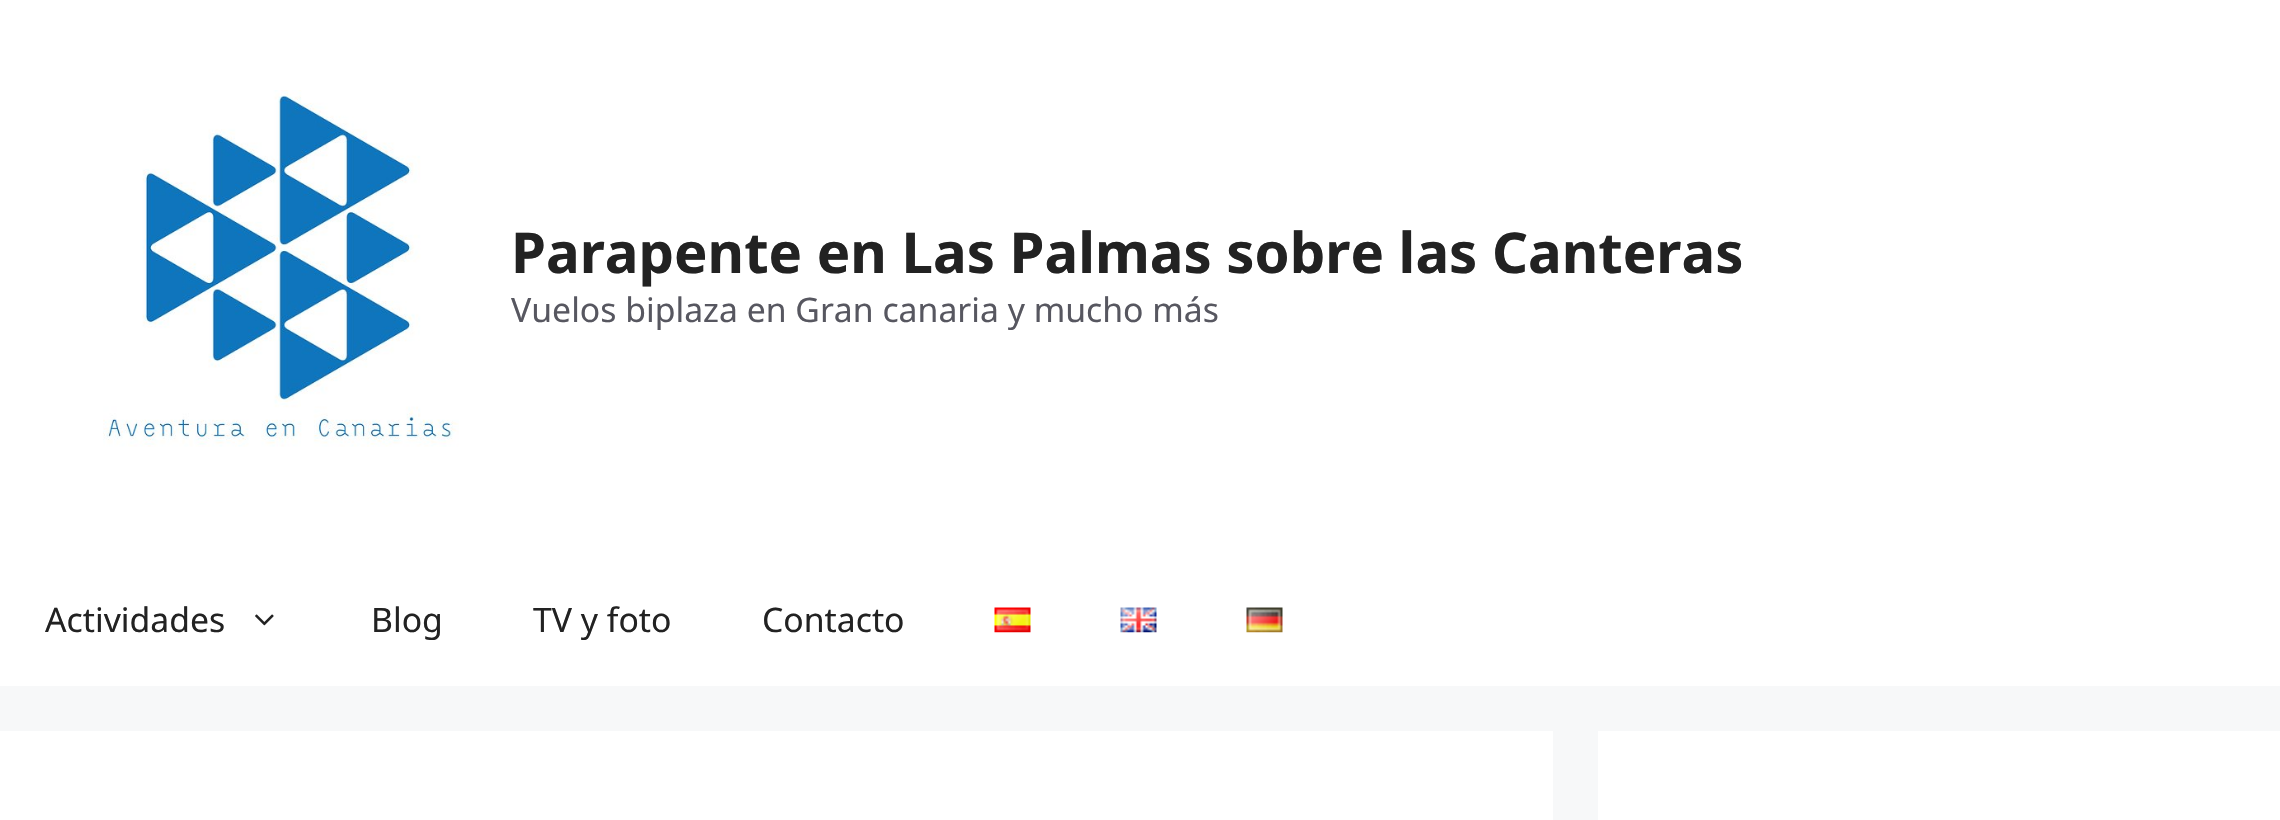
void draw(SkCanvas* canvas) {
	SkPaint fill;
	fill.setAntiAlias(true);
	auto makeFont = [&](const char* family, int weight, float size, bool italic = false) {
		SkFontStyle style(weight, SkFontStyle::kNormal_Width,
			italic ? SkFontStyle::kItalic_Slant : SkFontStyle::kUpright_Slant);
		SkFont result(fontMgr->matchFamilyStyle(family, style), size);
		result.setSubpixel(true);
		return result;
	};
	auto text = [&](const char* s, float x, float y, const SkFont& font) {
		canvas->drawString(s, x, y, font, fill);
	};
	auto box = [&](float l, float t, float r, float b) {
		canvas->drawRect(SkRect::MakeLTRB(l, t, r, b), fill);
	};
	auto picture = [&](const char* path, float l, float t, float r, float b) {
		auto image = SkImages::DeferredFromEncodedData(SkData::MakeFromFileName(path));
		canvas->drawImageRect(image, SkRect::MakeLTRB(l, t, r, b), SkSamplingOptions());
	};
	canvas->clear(0xFFF7F8F9);
	fill.setColor(0xFFFFFFFF);
	box(0, 0, 2280, 686);
	picture("image0.png", 103, 90, 459, 447);
	picture("image1.png", 255, 614, 274, 626);
	picture("image2.png", 994, 607, 1031, 633);
	picture("image3.png", 1120, 607, 1157, 633);
	picture("image4.png", 1246, 607, 1283, 633);
	box(0, 731, 1553, 820);
	box(1598, 731, 2280, 820);
	auto font1 = makeFont("Noto Sans", 700, 56.25f);
	fill.setColor(0xFF222222);
	text("Parapente en Las Palmas sobre las Canteras", 511, 273, font1);
	auto font2 = makeFont("Noto Sans", 400, 33.75f);
	fill.setColor(0xFF575760);
	text("Vuelos biplaza en Gran canaria y mucho más", 511, 322, font2);
	fill.setColor(0xFF222222);
	text("Actividades", 45, 632, font2);
	text("Blog", 371, 632, font2);
	text("TV y foto", 533, 632, font2);
	text("Contacto", 762, 632, font2);
}
